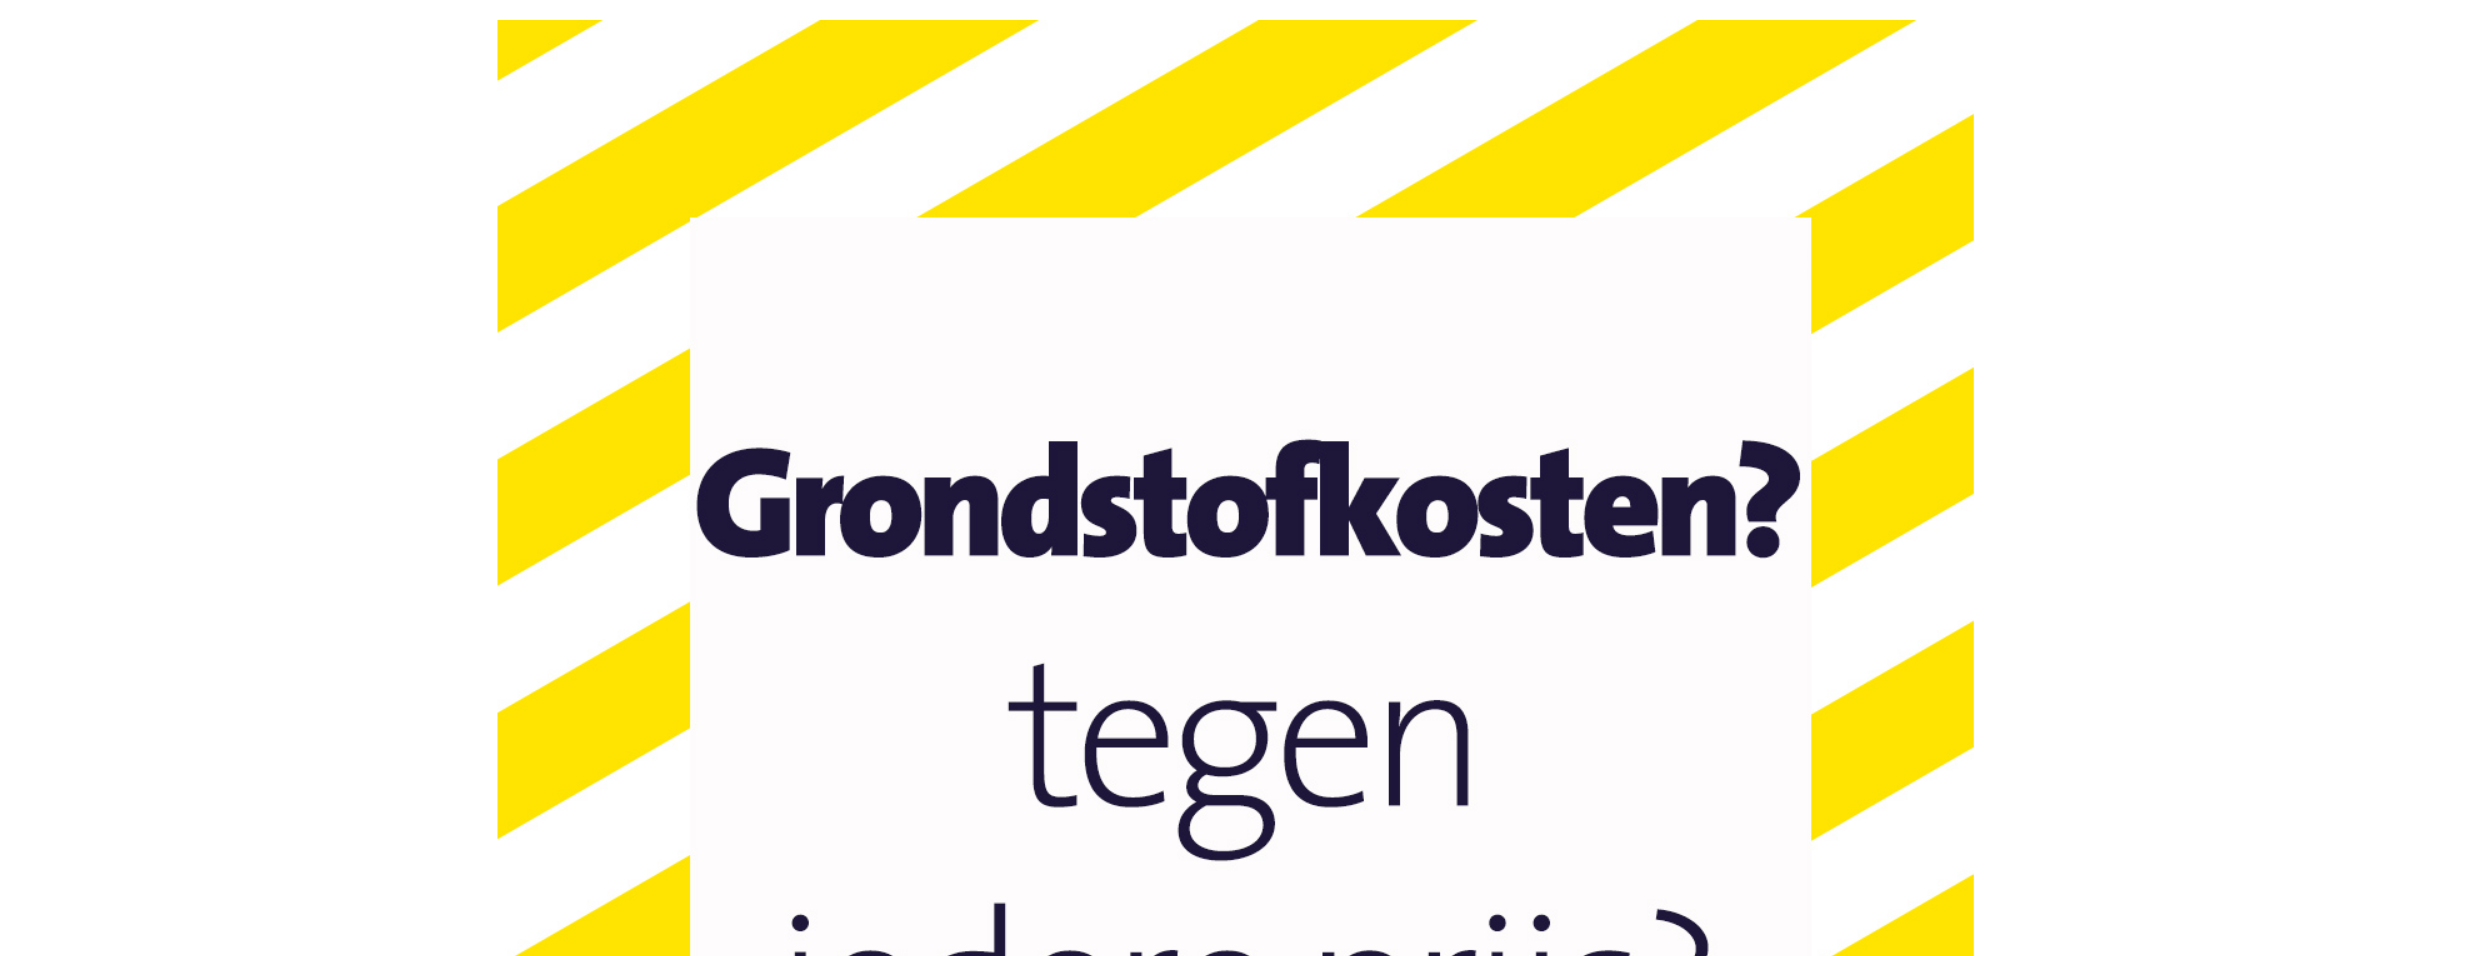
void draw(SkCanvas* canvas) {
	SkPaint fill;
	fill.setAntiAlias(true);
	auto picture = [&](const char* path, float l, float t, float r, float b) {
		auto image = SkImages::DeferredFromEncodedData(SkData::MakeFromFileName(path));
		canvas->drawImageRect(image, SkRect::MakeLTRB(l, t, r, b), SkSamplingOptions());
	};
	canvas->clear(0xFFFFFFFF);
	picture("image0.png", 497, 20, 1974, 956);
}
